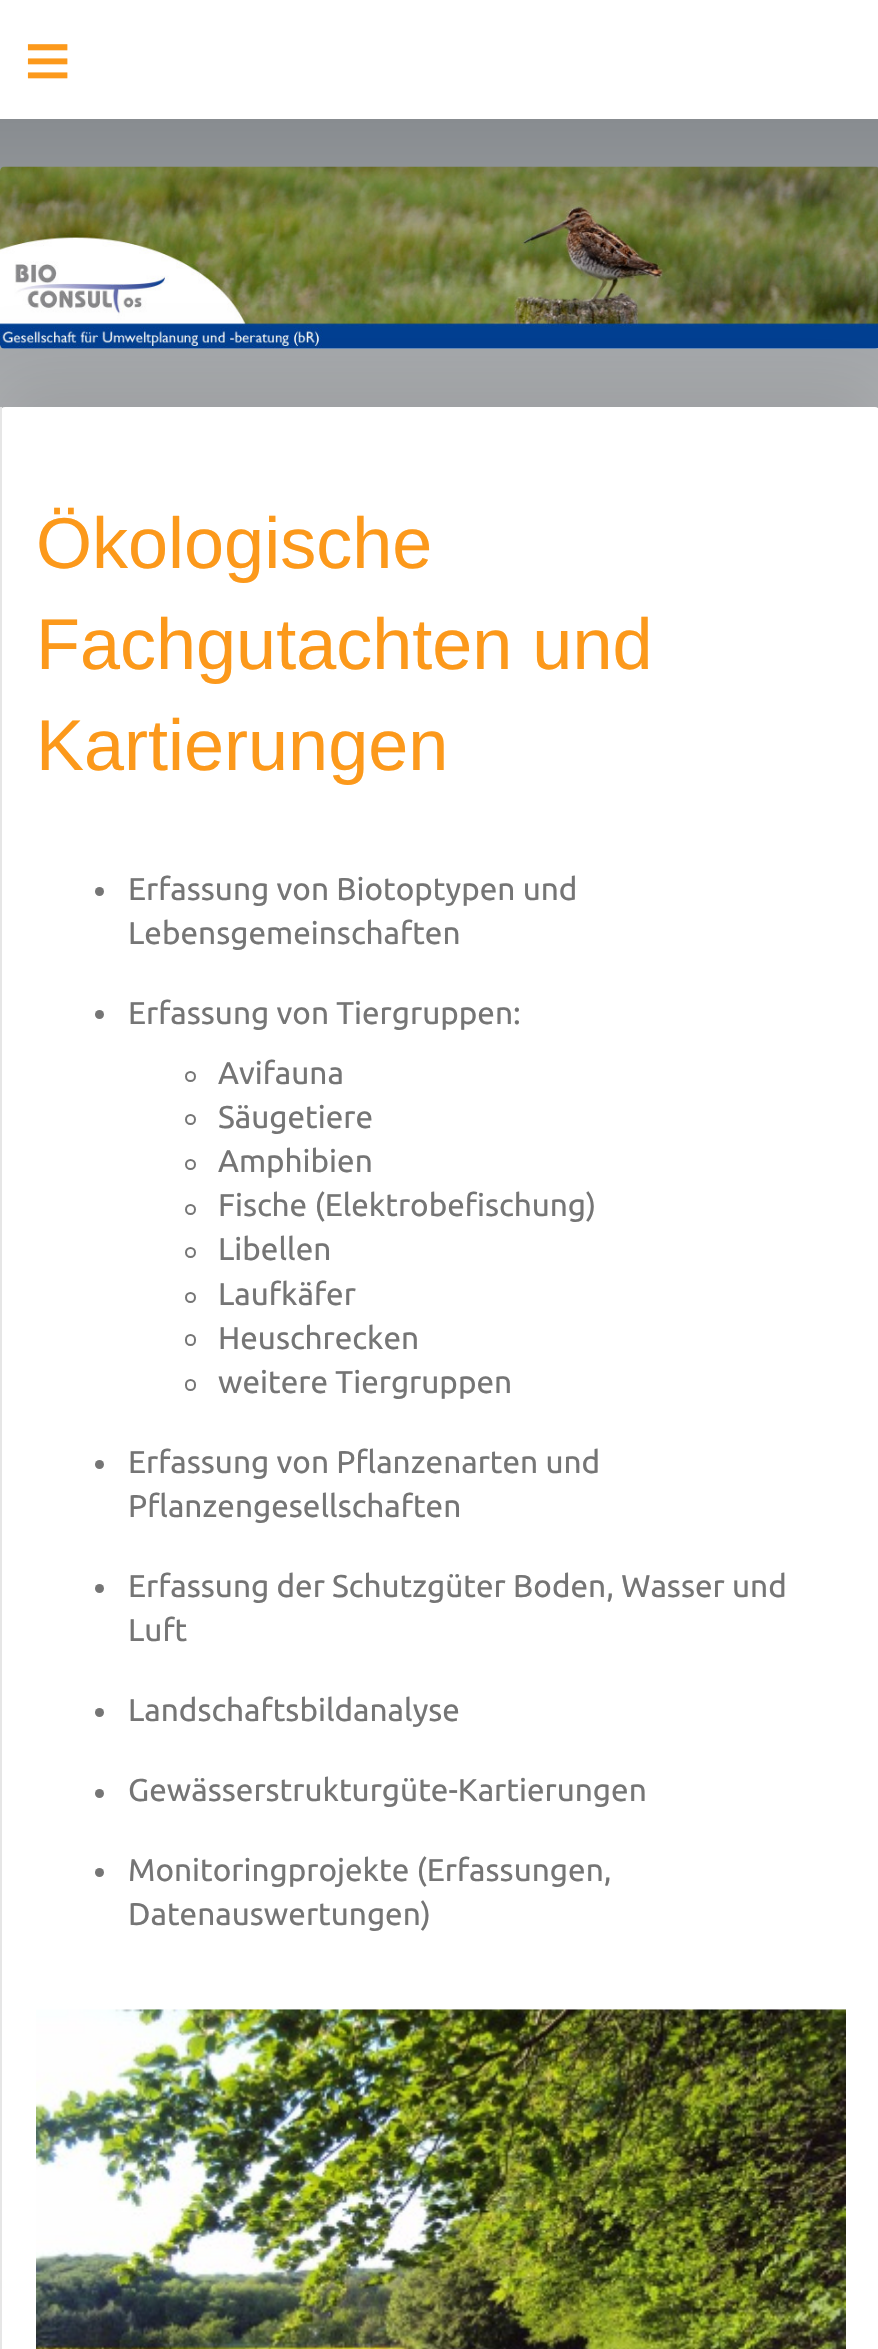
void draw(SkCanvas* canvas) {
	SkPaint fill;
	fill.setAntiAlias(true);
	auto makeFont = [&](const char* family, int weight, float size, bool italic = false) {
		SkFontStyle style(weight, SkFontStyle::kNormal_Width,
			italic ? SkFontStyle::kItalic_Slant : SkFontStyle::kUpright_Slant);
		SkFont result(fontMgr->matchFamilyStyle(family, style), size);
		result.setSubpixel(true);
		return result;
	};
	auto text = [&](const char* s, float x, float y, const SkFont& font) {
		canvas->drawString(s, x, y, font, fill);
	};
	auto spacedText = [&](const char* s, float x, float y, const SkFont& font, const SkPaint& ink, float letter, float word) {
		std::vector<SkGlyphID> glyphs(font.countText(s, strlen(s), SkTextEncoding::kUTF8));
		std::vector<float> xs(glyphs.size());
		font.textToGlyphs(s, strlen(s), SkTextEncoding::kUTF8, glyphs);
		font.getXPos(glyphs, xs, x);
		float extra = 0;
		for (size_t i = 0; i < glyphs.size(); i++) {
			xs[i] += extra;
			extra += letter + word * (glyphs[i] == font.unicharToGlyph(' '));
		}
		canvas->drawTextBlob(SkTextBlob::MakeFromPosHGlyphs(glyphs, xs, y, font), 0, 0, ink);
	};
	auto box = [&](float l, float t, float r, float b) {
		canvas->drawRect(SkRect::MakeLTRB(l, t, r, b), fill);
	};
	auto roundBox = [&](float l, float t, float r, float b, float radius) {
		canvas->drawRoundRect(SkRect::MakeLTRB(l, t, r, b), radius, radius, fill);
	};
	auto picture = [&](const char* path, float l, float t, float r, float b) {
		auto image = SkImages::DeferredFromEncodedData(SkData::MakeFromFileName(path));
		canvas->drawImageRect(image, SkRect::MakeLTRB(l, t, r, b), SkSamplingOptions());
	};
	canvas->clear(0xFFFFFFFF);
	{
		const SkColor colors[] = {0xFFB8BABC, 0xFF888C90};
		const float stops[] = {0, 1};
		const SkPoint ends[] = {{0, 491}, {0, 119}};
		fill.setShader(SkGradientShader::MakeLinear(ends, colors, stops, 2, SkTileMode::kClamp));
		fill.setAlpha(255);
	}
	box(0, 119, 878, 408);
	fill.setShader(nullptr);
	fill.setColor(0xFFEEEEEE);
	roundBox(0, 167, 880, 349, 5);
	picture("image0.png", 0, 166, 878, 349);
	fill.setColor(0x1A000000);
	fill.setMaskFilter(SkMaskFilter::MakeBlur(kNormal_SkBlurStyle, 34));
	canvas->drawRoundRect(SkRect::MakeLTRB(0, 385, 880, 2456), 5, 5, fill);
	fill.setMaskFilter(nullptr);
	fill.setColor(0xFFFFFFFF);
	roundBox(0, 407, 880, 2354, 5);
	fill.setColor(0xFFE6E6E6);
	box(0, 407, 2, 2349);
	fill.setColor(0xFF757575);
	canvas->drawCircle(99.5f, 891.5f, 4.5f, fill);
	canvas->drawCircle(99.5f, 1014.5f, 4.5f, fill);
	fill.setStyle(SkPaint::kStroke_Style);
	fill.setStrokeWidth(2);
	canvas->drawCircle(190.5f, 1076.5f, 4.5f, fill);
	canvas->drawCircle(190.5f, 1119.5f, 4.5f, fill);
	canvas->drawCircle(190.5f, 1164.5f, 4.5f, fill);
	canvas->drawCircle(190.5f, 1209.5f, 4.5f, fill);
	canvas->drawCircle(190.5f, 1252.5f, 4.5f, fill);
	canvas->drawCircle(190.5f, 1297.5f, 4.5f, fill);
	canvas->drawRoundRect(SkRect::MakeLTRB(186, 1335, 195, 1345), 4.5f, 4.5f, fill);
	canvas->drawRoundRect(SkRect::MakeLTRB(186, 1380, 195, 1390), 4.5f, 4.5f, fill);
	fill.setStyle(SkPaint::kFill_Style);
	canvas->drawCircle(99.5f, 1464.5f, 4.5f, fill);
	canvas->drawCircle(99.5f, 1588.5f, 4.5f, fill);
	canvas->drawCircle(99.5f, 1712.5f, 4.5f, fill);
	canvas->drawCircle(99.5f, 1793.5f, 4.5f, fill);
	canvas->drawCircle(99.5f, 1872.5f, 4.5f, fill);
	picture("image1.png", 36, 2009, 846, 2349);
	auto font1 = makeFont("Liberation Sans", 400, 81);
	fill.setColor(0xFFFC991B);
	spacedText("≡", 24, 88, font1, fill, 24, 0);
	auto font2 = makeFont("Liberation Sans", 400, 72);
	text("Ökologische", 36, 568, font2);
	text("Fachgutachten und", 36, 669, font2);
	text("Kartierungen", 36, 770, font2);
	auto font3 = makeFont("Ubuntu", 400, 31.5f);
	fill.setColor(0xFF757575);
	text("Erfassung von Biotoptypen und", 128, 900, font3);
	text("Lebensgemeinschaften", 128, 944, font3);
	text("Erfassung von Tiergruppen:", 128, 1024, font3);
	text("Avifauna", 218, 1084, font3);
	text("Säugetiere", 218, 1128, font3);
	text("Amphibien", 218, 1172, font3);
	text("Fische (Elektrobefischung)", 218, 1216, font3);
	text("Libellen", 218, 1260, font3);
	text("Laufkäfer", 218, 1305, font3);
	text("Heuschrecken", 218, 1349, font3);
	text("weitere Tiergruppen", 218, 1393, font3);
	text("Erfassung von Pflanzenarten und", 128, 1473, font3);
	text("Pflanzengesellschaften", 128, 1517, font3);
	text("Erfassung der Schutzgüter Boden, Wasser und", 128, 1597, font3);
	text("Luft", 128, 1641, font3);
	text("Landschaftsbildanalyse", 128, 1721, font3);
	text("Gewässerstrukturgüte-Kartierungen", 128, 1801, font3);
	text("Monitoringprojekte (Erfassungen,", 128, 1881, font3);
	text("Datenauswertungen)", 128, 1925, font3);
}
